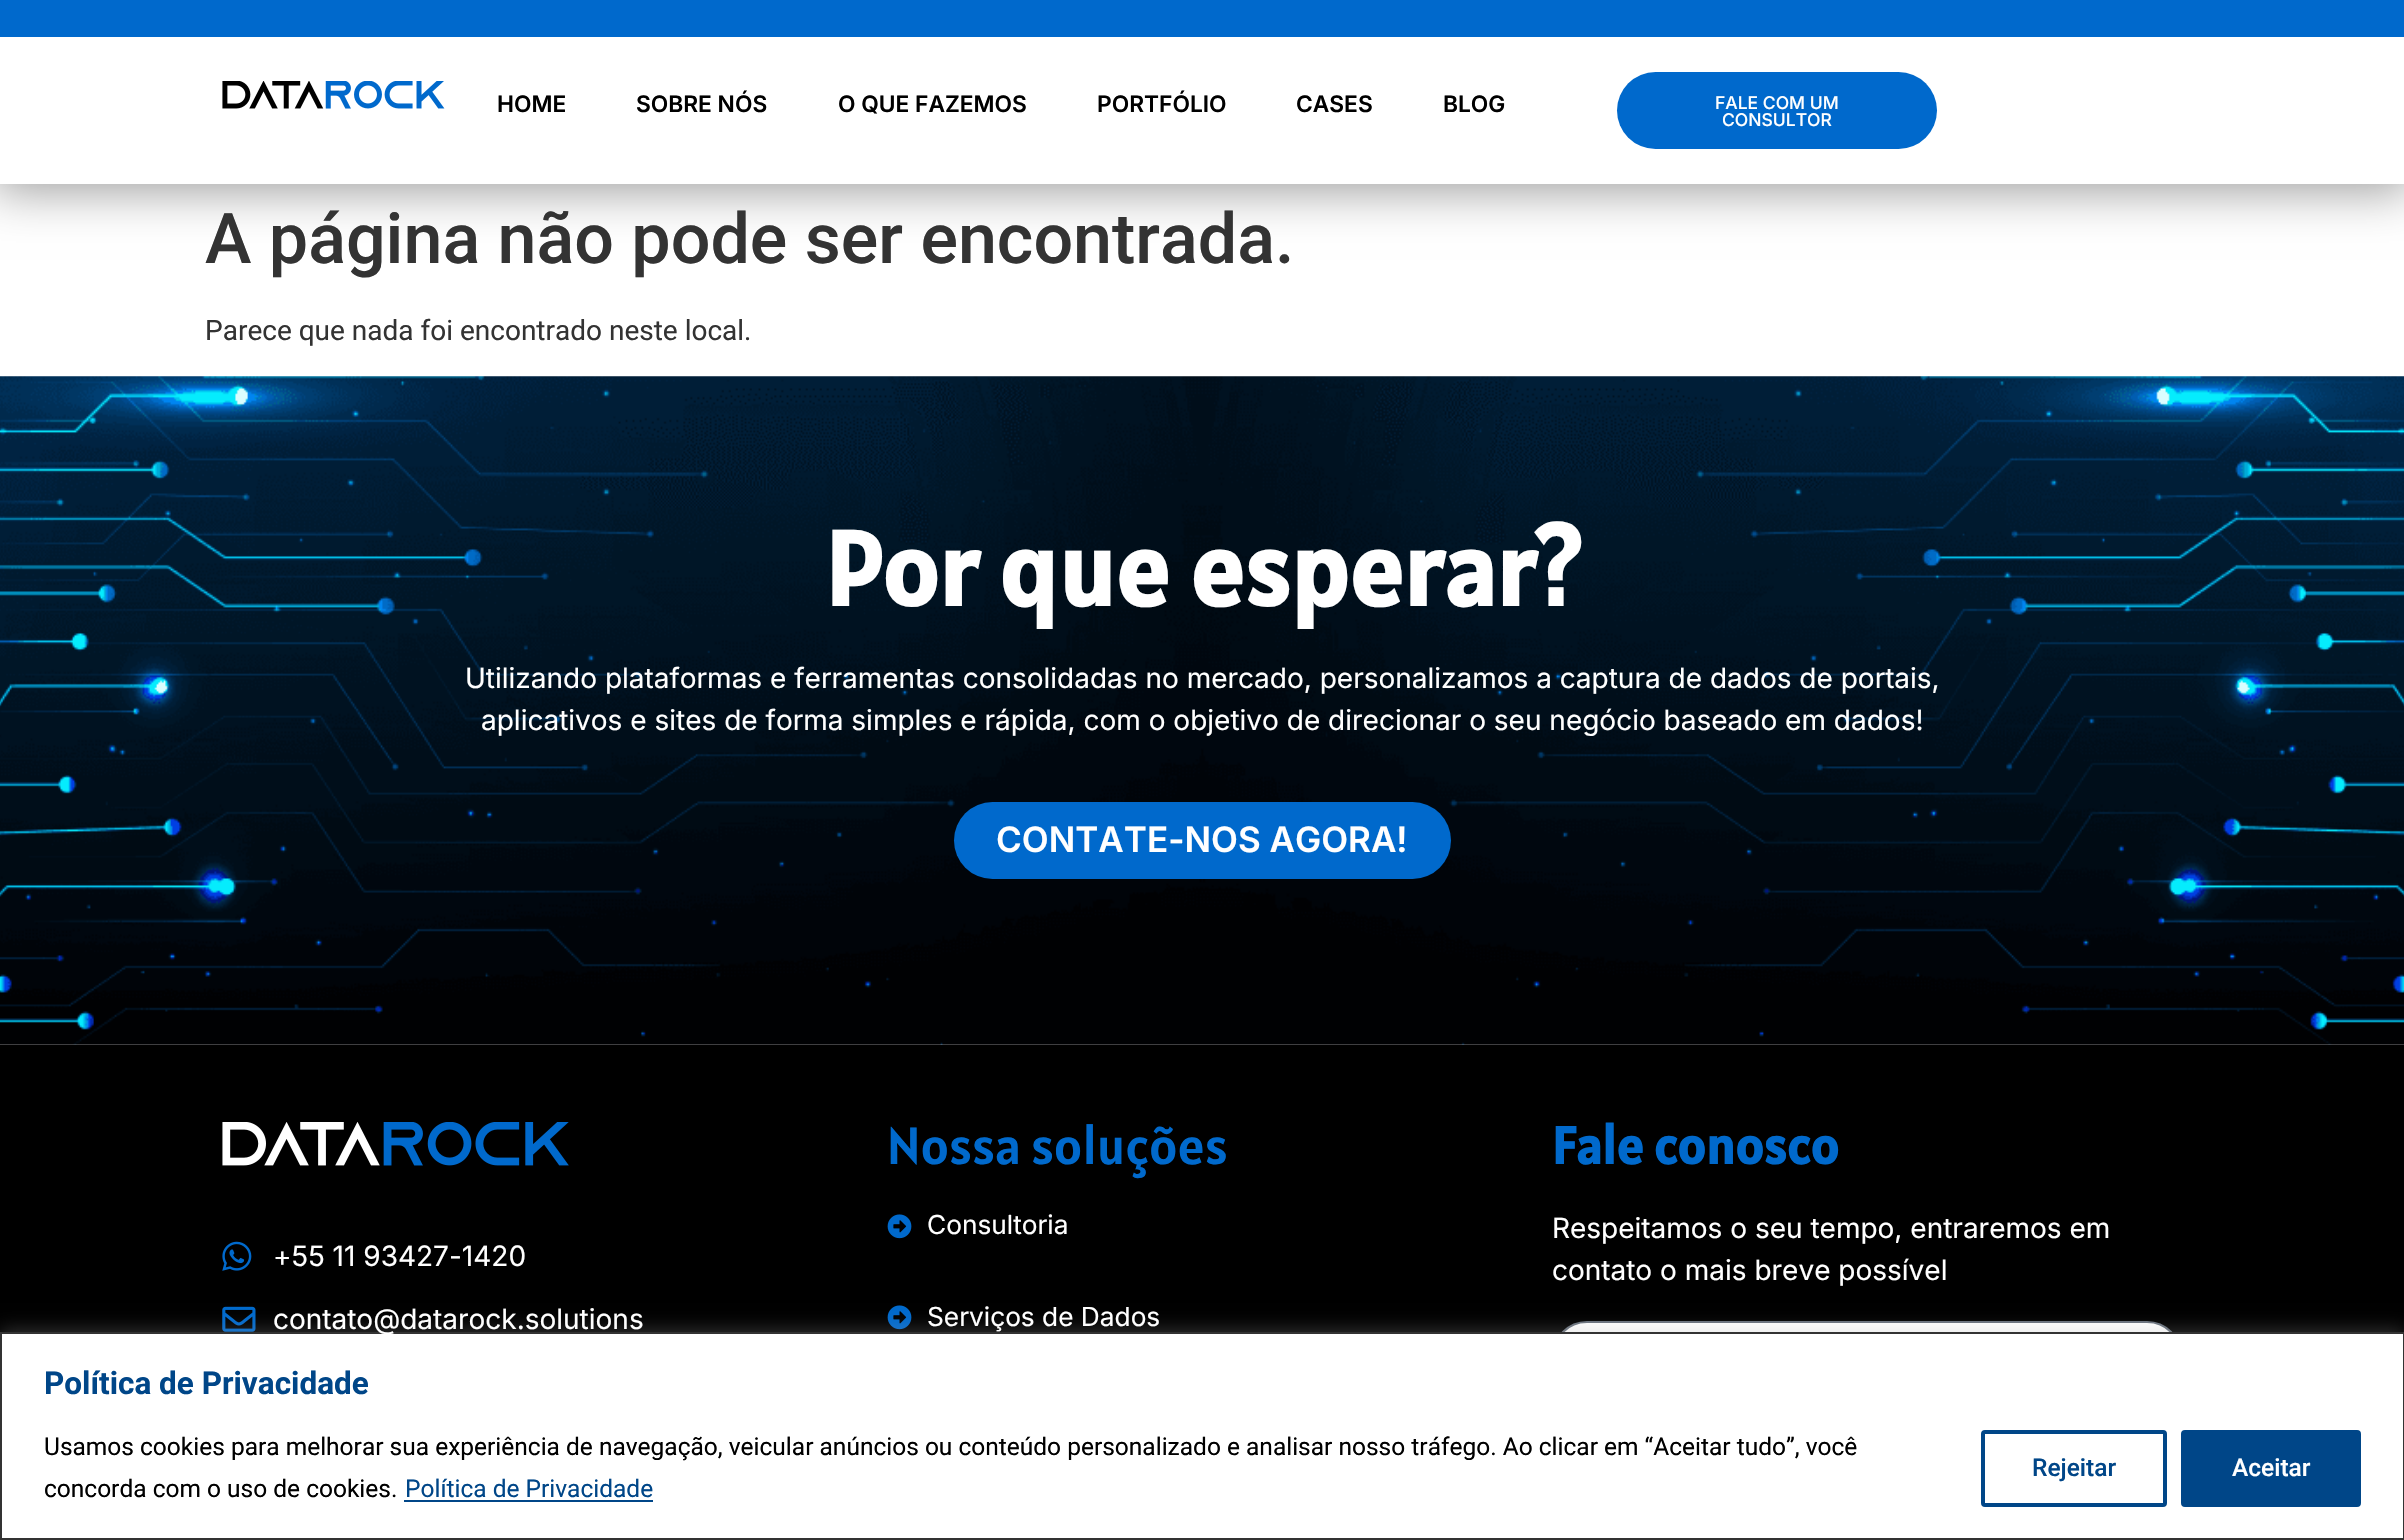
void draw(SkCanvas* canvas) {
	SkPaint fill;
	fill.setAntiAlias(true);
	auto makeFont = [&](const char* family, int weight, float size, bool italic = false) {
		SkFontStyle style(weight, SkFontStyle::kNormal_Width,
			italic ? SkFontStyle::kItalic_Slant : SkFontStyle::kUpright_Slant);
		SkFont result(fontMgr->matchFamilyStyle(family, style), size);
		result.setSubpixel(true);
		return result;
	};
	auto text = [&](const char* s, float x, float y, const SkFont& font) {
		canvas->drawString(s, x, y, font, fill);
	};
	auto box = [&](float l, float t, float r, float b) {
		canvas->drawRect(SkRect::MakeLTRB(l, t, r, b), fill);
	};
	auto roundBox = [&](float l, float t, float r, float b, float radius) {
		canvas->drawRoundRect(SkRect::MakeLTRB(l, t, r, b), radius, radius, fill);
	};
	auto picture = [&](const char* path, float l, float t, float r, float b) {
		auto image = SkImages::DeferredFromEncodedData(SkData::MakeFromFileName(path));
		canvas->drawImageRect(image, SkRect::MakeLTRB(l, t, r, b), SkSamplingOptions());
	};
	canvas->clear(0xFFFFFFFF);
	canvas->save();
	canvas->clipPath(SkPathBuilder(SkPathFillType::kEvenOdd).moveTo(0, 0).lineTo(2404, 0).lineTo(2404, 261).lineTo(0, 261).close().moveTo(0, 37).lineTo(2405, 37).lineTo(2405, 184).lineTo(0, 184).close().detach(), true);
	fill.setColor(0x61000000);
	fill.setMaskFilter(SkMaskFilter::MakeBlur(kNormal_SkBlurStyle, 23));
	canvas->drawRect(SkRect::MakeLTRB(-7, 30, 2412, 191), fill);
	fill.setMaskFilter(nullptr);
	canvas->restore();
	fill.setColor(0xFF0069CC);
	box(0, 0, 2404, 37);
	fill.setColor(0xD4FFFFFF);
	box(0, 183, 2404, 184);
	picture("image0.png", 222, 81, 445, 109);
	fill.setColor(0xFF0069CC);
	roundBox(1617, 72, 1937, 149, 38.5f);
	picture("image1.png", 0, 376, 2404, 1045);
	roundBox(954, 802, 1451, 879, 38.5f);
	fill.setColor(0xFF000000);
	box(0, 1045, 2404, 1332);
	picture("image2.png", 222, 1122, 569, 1166);
	picture("image3.png", 222, 1241, 252, 1271);
	picture("image4.png", 222, 1306, 256, 1332);
	picture("image5.png", 887, 1214, 912, 1239);
	picture("image5.png", 887, 1305, 912, 1330);
	fill.setColor(0xFFFFFFFF);
	canvas->drawRoundRect(SkRect::MakeLTRB(1553, 1322, 2181, 1390), 34, 34, fill);
	fill.setStyle(SkPaint::kStroke_Style);
	fill.setStrokeWidth(2);
	fill.setColor(0xFF69727D);
	canvas->drawRoundRect(SkRect::MakeLTRB(1553, 1322, 2181, 1390), 34, 34, fill);
	fill.setStyle(SkPaint::kFill_Style);
	fill.setColor(0x4DACABAB);
	fill.setMaskFilter(SkMaskFilter::MakeBlur(kNormal_SkBlurStyle, 9));
	canvas->drawRect(SkRect::MakeLTRB(0, 1330, 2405, 1538), fill);
	fill.setMaskFilter(nullptr);
	fill.setColor(0xFFFFFFFF);
	canvas->drawRect(SkRect::MakeLTRB(1, 1333, 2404, 1539), fill);
	fill.setStyle(SkPaint::kStroke_Style);
	fill.setColor(0xFF333333);
	canvas->drawRect(SkRect::MakeLTRB(1, 1333, 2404, 1539), fill);
	fill.setStyle(SkPaint::kFill_Style);
	fill.setColor(0xFF004688);
	box(404, 1500, 653, 1502);
	fill.setStyle(SkPaint::kStroke_Style);
	fill.setStrokeWidth(4);
	canvas->drawRoundRect(SkRect::MakeLTRB(1983, 1432, 2165, 1505), 2, 2, fill);
	fill.setStyle(SkPaint::kFill_Style);
	canvas->drawRoundRect(SkRect::MakeLTRB(2183, 1432, 2359, 1505), 2, 2, fill);
	fill.setStyle(SkPaint::kStroke_Style);
	canvas->drawRoundRect(SkRect::MakeLTRB(2183, 1432, 2359, 1505), 2, 2, fill);
	auto font1 = makeFont("Inter", 600, 22.75f);
	fill.setStyle(SkPaint::kFill_Style);
	fill.setColor(0xFF000000);
	text("HOME", 497, 112, font1);
	text("SOBRE NÓS", 636, 112, font1);
	text("O QUE FAZEMOS", 838, 112, font1);
	text("PORTFÓLIO", 1097, 112, font1);
	text("CASES", 1296, 112, font1);
	text("BLOG", 1443, 112, font1);
	auto font2 = makeFont("Inter", 500, 17.5f);
	fill.setColor(0xFFFFFFFF);
	text("FALE COM UM", 1715, 109, font2);
	text("CONSULTOR", 1722, 126, font2);
	auto font3 = makeFont("Roboto", 500, 70);
	fill.setColor(0xFF333333);
	text("A página não pode ser encontrada.", 205, 263, font3);
	auto font4 = makeFont("Roboto", 400, 28);
	text("Parece que nada foi encontrado neste local.", 205, 340, font4);
	auto font5 = makeFont("Alatsi", 700, 105);
	fill.setColor(0xFFFFFFFF);
	text("Por que esperar?", 825, 606, font5);
	auto font6 = makeFont("Inter", 400, 28);
	text("Utilizando plataformas e ferramentas consolidadas no mercado, personalizamos a captura de dados de portais,", 465, 688, font6);
	text("aplicativos e sites de forma simples e rápida, com o objetivo de direcionar o seu negócio baseado em dados!", 481, 730, font6);
	auto font7 = makeFont("Inter", 600, 35);
	text("CONTATE-NOS AGORA!", 996, 852, font7);
	text("+55 11 93427-1420", 273, 1266, font6);
	text("contato@datarock.solutions", 273, 1329, font6);
	auto font8 = makeFont("Alatsi", 400, 52.5f);
	fill.setColor(0xFF0069CC);
	text("Nossa soluções", 887, 1164, font8);
	auto font9 = makeFont("Inter", 400, 26.25f);
	fill.setColor(0xFFFFFFFF);
	text("Consultoria", 927, 1234, font9);
	text("Serviços de Dados", 927, 1326, font9);
	auto font10 = makeFont("Alatsi", 700, 52.5f);
	fill.setColor(0xFF0069CC);
	text("Fale conosco", 1552, 1164, font10);
	fill.setColor(0xFFFFFFFF);
	text("Respeitamos o seu tempo, entraremos em", 1552, 1238, font6);
	text("contato o mais breve possível", 1552, 1280, font6);
	auto font11 = makeFont("Roboto", 700, 31.5f);
	fill.setColor(0xFF004688);
	text("Política de Privacidade", 44, 1394, font11);
	auto font12 = makeFont("Roboto", 400, 24.5f);
	fill.setColor(0xFF000000);
	text("Usamos cookies para melhorar sua experiência de navegação, veicular anúncios ou conteúdo personalizado e analisar nosso tráfego. Ao clicar em “Aceitar tudo”, você", 44, 1455, font12);
	text("concorda com o uso de cookies.", 44, 1497, font12);
	fill.setColor(0xFF004688);
	text("Política de Privacidade", 405, 1497, font12);
	auto font13 = makeFont("Roboto", 500, 24.5f);
	text("Rejeitar", 2032, 1476, font13);
	fill.setColor(0xFFFFFFFF);
	text("Aceitar", 2232, 1476, font13);
}
